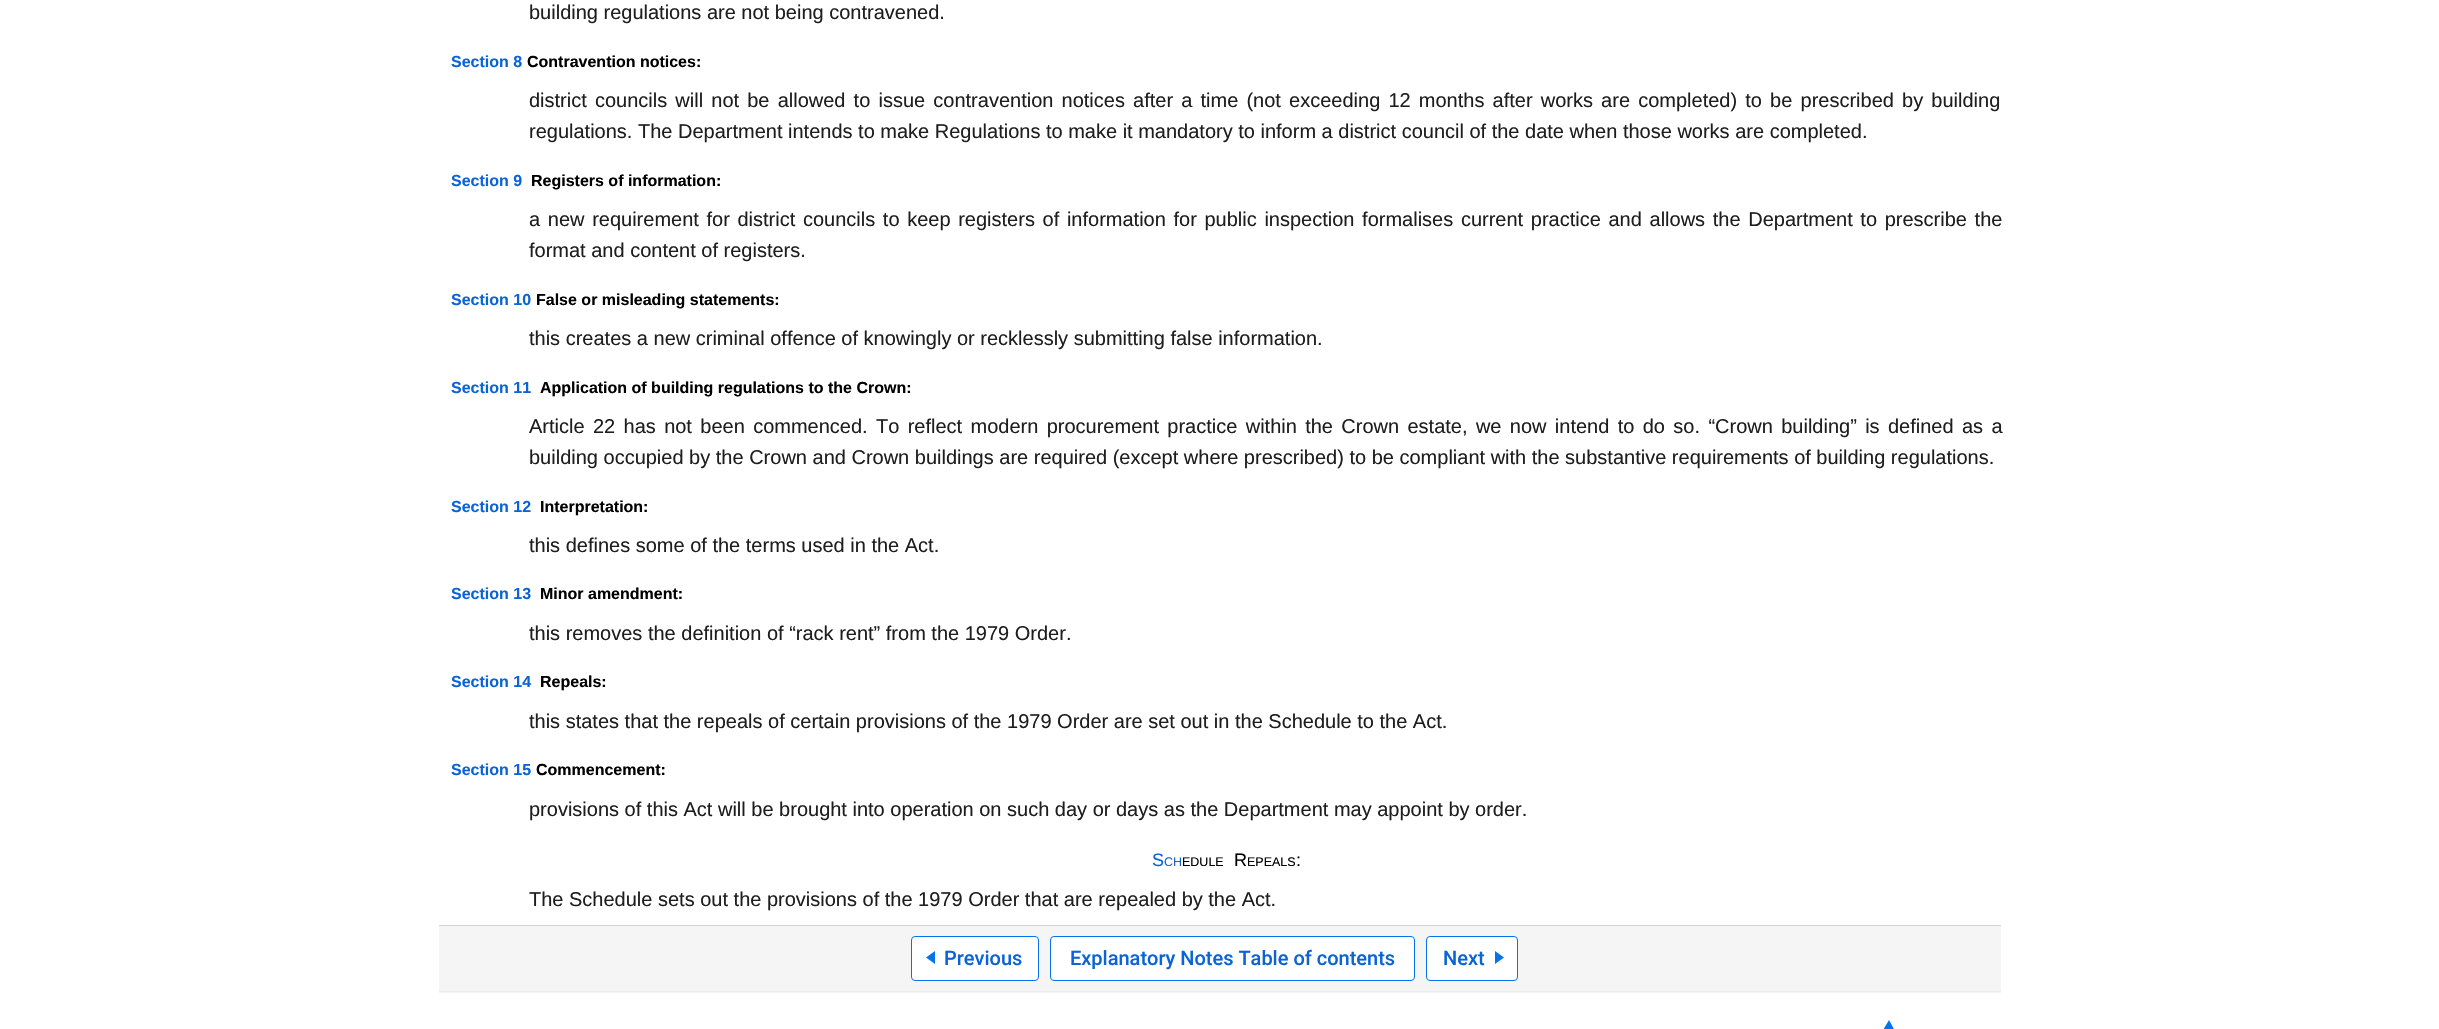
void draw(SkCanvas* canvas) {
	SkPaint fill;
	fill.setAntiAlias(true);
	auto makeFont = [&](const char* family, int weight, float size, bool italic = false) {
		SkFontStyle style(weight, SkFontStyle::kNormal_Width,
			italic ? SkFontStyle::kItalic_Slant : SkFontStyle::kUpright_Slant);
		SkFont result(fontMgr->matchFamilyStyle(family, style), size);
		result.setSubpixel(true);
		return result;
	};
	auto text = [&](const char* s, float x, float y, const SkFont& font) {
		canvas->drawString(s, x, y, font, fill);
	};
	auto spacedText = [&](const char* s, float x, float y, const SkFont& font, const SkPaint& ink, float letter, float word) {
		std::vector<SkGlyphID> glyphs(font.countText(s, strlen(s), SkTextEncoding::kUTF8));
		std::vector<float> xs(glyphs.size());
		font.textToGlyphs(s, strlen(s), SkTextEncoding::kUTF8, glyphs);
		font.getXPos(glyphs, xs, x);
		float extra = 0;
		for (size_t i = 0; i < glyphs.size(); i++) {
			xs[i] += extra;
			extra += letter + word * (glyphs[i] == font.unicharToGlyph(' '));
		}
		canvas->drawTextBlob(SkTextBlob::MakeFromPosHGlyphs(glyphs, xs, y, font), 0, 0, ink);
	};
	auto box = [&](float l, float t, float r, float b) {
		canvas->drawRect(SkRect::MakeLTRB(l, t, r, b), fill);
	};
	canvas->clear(0xFFFFFFFF);
	fill.setColor(0xFFF5F5F5);
	box(439, 926, 2001, 993);
	fill.setColor(0xFFD3D3D3);
	box(439, 925, 2001, 926);
	fill.setColor(0xFFEBEBEB);
	box(439, 991, 2001, 992);
	fill.setColor(0xFFFFFFFF);
	canvas->drawRoundRect(SkRect::MakeLTRB(911.5f, 936.5f, 1038.5f, 980.5f), 3.5f, 3.5f, fill);
	fill.setStyle(SkPaint::kStroke_Style);
	fill.setStrokeWidth(1);
	fill.setColor(0xFF0573EB);
	canvas->drawRoundRect(SkRect::MakeLTRB(911.5f, 936.5f, 1038.5f, 980.5f), 3.5f, 3.5f, fill);
	fill.setStyle(SkPaint::kFill_Style);
	canvas->drawPath(SkPathBuilder().moveTo(935, 951).lineTo(935, 964).lineTo(926, 957.5f).close().detach(), fill);
	fill.setColor(0xFFFFFFFF);
	canvas->drawRoundRect(SkRect::MakeLTRB(1050.5f, 936.5f, 1414.5f, 980.5f), 3.5f, 3.5f, fill);
	fill.setStyle(SkPaint::kStroke_Style);
	fill.setColor(0xFF0573EB);
	canvas->drawRoundRect(SkRect::MakeLTRB(1050.5f, 936.5f, 1414.5f, 980.5f), 3.5f, 3.5f, fill);
	fill.setStyle(SkPaint::kFill_Style);
	fill.setColor(0xFFFFFFFF);
	canvas->drawRoundRect(SkRect::MakeLTRB(1426.5f, 936.5f, 1517.5f, 980.5f), 3.5f, 3.5f, fill);
	fill.setStyle(SkPaint::kStroke_Style);
	fill.setColor(0xFF0573EB);
	canvas->drawRoundRect(SkRect::MakeLTRB(1426.5f, 936.5f, 1517.5f, 980.5f), 3.5f, 3.5f, fill);
	fill.setStyle(SkPaint::kFill_Style);
	canvas->drawPath(SkPathBuilder().moveTo(1495, 964).lineTo(1495, 951).lineTo(1504, 957.5f).close().detach(), fill);
	canvas->drawPath(SkPathBuilder().moveTo(1895, 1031).lineTo(1882.5f, 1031).lineTo(1889, 1020).close().detach(), fill);
	auto font1 = makeFont("Liberation Sans", 400, 20);
	fill.setColor(0xFF1E1E1E);
	text("building regulations are not being contravened.", 529, 19, font1);
	auto font2 = makeFont("Liberation Sans", 700, 16);
	fill.setColor(0xFF0A64D7);
	text("Section 8", 451, 67, font2);
	fill.setColor(0xFF000000);
	text("Contravention notices:", 527, 67, font2);
	fill.setColor(0xFF1E1E1E);
	spacedText("district councils will not be allowed to issue contravention notices after a time (not exceeding 12 months after works are completed) to be prescribed by building", 529, 107, font1, fill, 0, 2.6f);
	text("regulations. The Department intends to make Regulations to make it mandatory to inform a district council of the date when those works are completed.", 529, 138, font1);
	fill.setColor(0xFF0A64D7);
	text("Section 9", 451, 186, font2);
	fill.setColor(0xFF000000);
	text("Registers of information:", 531, 186, font2);
	fill.setColor(0xFF1E1E1E);
	spacedText("a new requirement for district councils to keep registers of information for public inspection formalises current practice and allows the Department to prescribe the", 529, 226, font1, fill, 0, 2.1f);
	text("format and content of registers.", 529, 257, font1);
	fill.setColor(0xFF0A64D7);
	text("Section 10", 451, 305, font2);
	fill.setColor(0xFF000000);
	text("False or misleading statements:", 536, 305, font2);
	fill.setColor(0xFF1E1E1E);
	text("this creates a new criminal offence of knowingly or recklessly submitting false information.", 529, 345, font1);
	fill.setColor(0xFF0A64D7);
	text("Section 11", 451, 393, font2);
	fill.setColor(0xFF000000);
	text("Application of building regulations to the Crown:", 540, 393, font2);
	fill.setColor(0xFF1E1E1E);
	spacedText("Article 22 has not been commenced. To reflect modern procurement practice within the Crown estate, we now intend to do so. “Crown building” is defined as a", 529, 433, font1, fill, 0, 2.8f);
	text("building occupied by the Crown and Crown buildings are required (except where prescribed) to be compliant with the substantive requirements of building regulations.", 529, 464, font1);
	fill.setColor(0xFF0A64D7);
	text("Section 12", 451, 512, font2);
	fill.setColor(0xFF000000);
	text("Interpretation:", 540, 512, font2);
	fill.setColor(0xFF1E1E1E);
	text("this defines some of the terms used in the Act.", 529, 552, font1);
	fill.setColor(0xFF0A64D7);
	text("Section 13", 451, 599, font2);
	fill.setColor(0xFF000000);
	text("Minor amendment:", 540, 599, font2);
	fill.setColor(0xFF1E1E1E);
	text("this removes the definition of “rack rent” from the 1979 Order.", 529, 640, font1);
	fill.setColor(0xFF0A64D7);
	text("Section 14", 451, 687, font2);
	fill.setColor(0xFF000000);
	text("Repeals:", 540, 687, font2);
	fill.setColor(0xFF1E1E1E);
	text("this states that the repeals of certain provisions of the 1979 Order are set out in the Schedule to the Act.", 529, 728, font1);
	fill.setColor(0xFF0A64D7);
	text("Section 15", 451, 775, font2);
	fill.setColor(0xFF000000);
	text("Commencement:", 536, 775, font2);
	fill.setColor(0xFF1E1E1E);
	text("provisions of this Act will be brought into operation on such day or days as the Department may appoint by order.", 529, 816, font1);
	auto font3 = makeFont("Liberation Sans", 400, 18);
	fill.setColor(0xFF0A64D7);
	text("S", 1152, 866, font3);
	auto font4 = makeFont("Liberation Sans", 400, 12.5f);
	text("CH", 1164, 866, font4);
	fill.setColor(0xFF000000);
	text("EDULE", 1182, 866, font4);
	text("R", 1234, 866, font3);
	text("EPEALS", 1247, 866, font4);
	text(":", 1296, 866, font3);
	fill.setColor(0xFF1E1E1E);
	text("The Schedule sets out the provisions of the 1979 Order that are repealed by the Act.", 529, 906, font1);
	auto font5 = makeFont("Roboto", 500, 20);
	fill.setColor(0xFF0A64D7);
	text("Previous", 944, 965, font5);
	text("Explanatory Notes Table of contents", 1070, 965, font5);
	text("Next", 1443, 965, font5);
}
